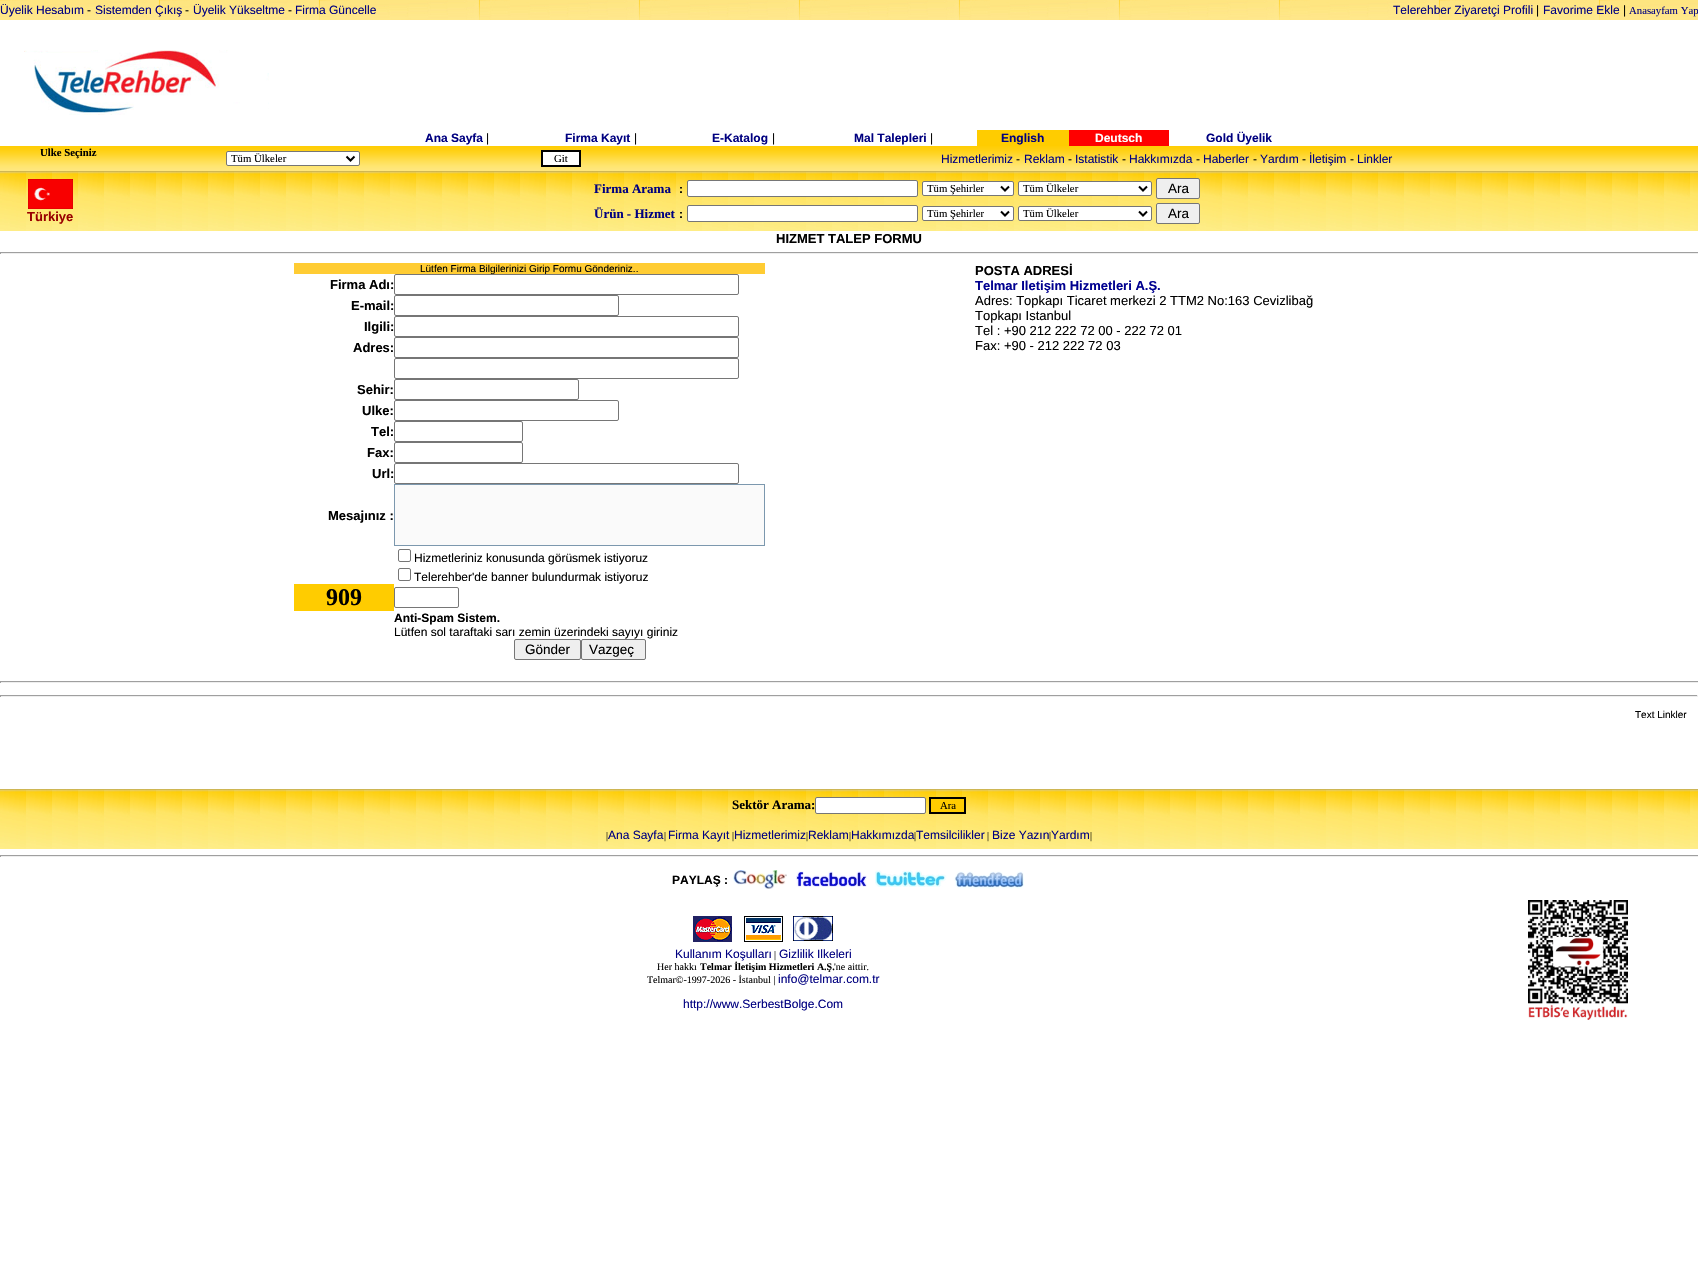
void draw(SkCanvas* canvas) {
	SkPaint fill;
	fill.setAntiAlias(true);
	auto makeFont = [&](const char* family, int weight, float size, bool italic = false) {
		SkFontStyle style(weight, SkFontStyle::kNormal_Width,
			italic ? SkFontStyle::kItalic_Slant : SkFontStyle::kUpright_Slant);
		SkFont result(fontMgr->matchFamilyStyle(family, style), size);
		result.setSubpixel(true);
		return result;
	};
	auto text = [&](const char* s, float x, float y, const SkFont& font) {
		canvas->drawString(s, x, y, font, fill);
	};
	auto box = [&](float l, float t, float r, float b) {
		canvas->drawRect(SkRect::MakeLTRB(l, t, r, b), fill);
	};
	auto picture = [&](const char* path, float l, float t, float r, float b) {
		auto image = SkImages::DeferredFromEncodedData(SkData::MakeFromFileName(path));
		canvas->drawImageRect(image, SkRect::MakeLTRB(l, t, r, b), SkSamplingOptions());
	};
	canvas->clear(0xFFFFFFFF);
	picture("image0.png", 0, 0, 1698, 20);
	picture("image1.png", 24, 50, 269, 115);
	fill.setColor(0xFFFFCC00);
	box(977, 130, 1069, 146);
	fill.setColor(0xFFFF0000);
	box(1069, 130, 1169, 146);
	picture("image2.png", 0, 146, 1698, 171);
	fill.setColor(0xFFFFFFFF);
	canvas->drawRoundRect(SkRect::MakeLTRB(226.5f, 151.5f, 359.5f, 165.5f), 1.5f, 1.5f, fill);
	fill.setStyle(SkPaint::kStroke_Style);
	fill.setStrokeWidth(1);
	fill.setColor(0xFF767676);
	canvas->drawRoundRect(SkRect::MakeLTRB(226.5f, 151.5f, 359.5f, 165.5f), 1.5f, 1.5f, fill);
	fill.setStrokeWidth(2);
	fill.setColor(0xFF000000);
	canvas->drawPath(SkPathBuilder().moveTo(346.5f, 156.5f).lineTo(350.5f, 160.5f).lineTo(354.5f, 156.5f).detach(), fill);
	fill.setStyle(SkPaint::kFill_Style);
	fill.setColor(0xFFFFFFFF);
	canvas->drawRect(SkRect::MakeLTRB(542, 151, 580, 166), fill);
	fill.setStyle(SkPaint::kStroke_Style);
	fill.setColor(0xFF000000);
	canvas->drawRect(SkRect::MakeLTRB(542, 151, 580, 166), fill);
	picture("image3.png", 0, 171, 1698, 231);
	picture("image4.png", 28, 179, 73, 209);
	fill.setStyle(SkPaint::kFill_Style);
	fill.setColor(0xFFFFFFFF);
	canvas->drawRoundRect(SkRect::MakeLTRB(687.5f, 180.5f, 917.5f, 196.5f), 1.5f, 1.5f, fill);
	fill.setStyle(SkPaint::kStroke_Style);
	fill.setStrokeWidth(1);
	fill.setColor(0xFF767676);
	canvas->drawRoundRect(SkRect::MakeLTRB(687.5f, 180.5f, 917.5f, 196.5f), 1.5f, 1.5f, fill);
	fill.setStyle(SkPaint::kFill_Style);
	fill.setColor(0xFFFFFFFF);
	canvas->drawRoundRect(SkRect::MakeLTRB(922.5f, 181.5f, 1013.5f, 195.5f), 1.5f, 1.5f, fill);
	fill.setStyle(SkPaint::kStroke_Style);
	fill.setColor(0xFF767676);
	canvas->drawRoundRect(SkRect::MakeLTRB(922.5f, 181.5f, 1013.5f, 195.5f), 1.5f, 1.5f, fill);
	fill.setStrokeWidth(2);
	fill.setColor(0xFF000000);
	canvas->drawPath(SkPathBuilder().moveTo(1001, 186.5f).lineTo(1005, 190.5f).lineTo(1009, 186.5f).detach(), fill);
	fill.setStyle(SkPaint::kFill_Style);
	fill.setColor(0xFFFFFFFF);
	canvas->drawRoundRect(SkRect::MakeLTRB(1018.5f, 181.5f, 1151.5f, 195.5f), 1.5f, 1.5f, fill);
	fill.setStyle(SkPaint::kStroke_Style);
	fill.setStrokeWidth(1);
	fill.setColor(0xFF767676);
	canvas->drawRoundRect(SkRect::MakeLTRB(1018.5f, 181.5f, 1151.5f, 195.5f), 1.5f, 1.5f, fill);
	fill.setStrokeWidth(2);
	fill.setColor(0xFF000000);
	canvas->drawPath(SkPathBuilder().moveTo(1139, 186.5f).lineTo(1143, 190.5f).lineTo(1147, 186.5f).detach(), fill);
	fill.setStyle(SkPaint::kFill_Style);
	fill.setColor(0xFFEFEFEF);
	canvas->drawRoundRect(SkRect::MakeLTRB(1156.5f, 178.5f, 1199.5f, 198.5f), 1.5f, 1.5f, fill);
	fill.setStyle(SkPaint::kStroke_Style);
	fill.setStrokeWidth(1);
	fill.setColor(0xFF767676);
	canvas->drawRoundRect(SkRect::MakeLTRB(1156.5f, 178.5f, 1199.5f, 198.5f), 1.5f, 1.5f, fill);
	fill.setStyle(SkPaint::kFill_Style);
	fill.setColor(0xFFFFFFFF);
	canvas->drawRoundRect(SkRect::MakeLTRB(687.5f, 205.5f, 917.5f, 221.5f), 1.5f, 1.5f, fill);
	fill.setStyle(SkPaint::kStroke_Style);
	fill.setColor(0xFF767676);
	canvas->drawRoundRect(SkRect::MakeLTRB(687.5f, 205.5f, 917.5f, 221.5f), 1.5f, 1.5f, fill);
	fill.setStyle(SkPaint::kFill_Style);
	fill.setColor(0xFFFFFFFF);
	canvas->drawRoundRect(SkRect::MakeLTRB(922.5f, 206.5f, 1013.5f, 220.5f), 1.5f, 1.5f, fill);
	fill.setStyle(SkPaint::kStroke_Style);
	fill.setColor(0xFF767676);
	canvas->drawRoundRect(SkRect::MakeLTRB(922.5f, 206.5f, 1013.5f, 220.5f), 1.5f, 1.5f, fill);
	fill.setStrokeWidth(2);
	fill.setColor(0xFF000000);
	canvas->drawPath(SkPathBuilder().moveTo(1001, 211.5f).lineTo(1005, 215.5f).lineTo(1009, 211.5f).detach(), fill);
	fill.setStyle(SkPaint::kFill_Style);
	fill.setColor(0xFFFFFFFF);
	canvas->drawRoundRect(SkRect::MakeLTRB(1018.5f, 206.5f, 1151.5f, 220.5f), 1.5f, 1.5f, fill);
	fill.setStyle(SkPaint::kStroke_Style);
	fill.setStrokeWidth(1);
	fill.setColor(0xFF767676);
	canvas->drawRoundRect(SkRect::MakeLTRB(1018.5f, 206.5f, 1151.5f, 220.5f), 1.5f, 1.5f, fill);
	fill.setStrokeWidth(2);
	fill.setColor(0xFF000000);
	canvas->drawPath(SkPathBuilder().moveTo(1139, 211.5f).lineTo(1143, 215.5f).lineTo(1147, 211.5f).detach(), fill);
	fill.setStyle(SkPaint::kFill_Style);
	fill.setColor(0xFFEFEFEF);
	canvas->drawRoundRect(SkRect::MakeLTRB(1156.5f, 203.5f, 1199.5f, 223.5f), 1.5f, 1.5f, fill);
	fill.setStyle(SkPaint::kStroke_Style);
	fill.setStrokeWidth(1);
	fill.setColor(0xFF767676);
	canvas->drawRoundRect(SkRect::MakeLTRB(1156.5f, 203.5f, 1199.5f, 223.5f), 1.5f, 1.5f, fill);
	fill.setStyle(SkPaint::kFill_Style);
	fill.setColor(0xFF9F9F9F);
	box(0, 252, 1698, 253);
	fill.setColor(0xFFEEEEEE);
	box(0, 253, 1698, 254);
	fill.setColor(0xFF9F9F9F);
	box(0, 252, 1, 254);
	fill.setColor(0xFFFFCC33);
	box(294, 263, 765, 274);
	fill.setStyle(SkPaint::kStroke_Style);
	fill.setColor(0xFF767676);
	canvas->drawRoundRect(SkRect::MakeLTRB(394.5f, 295.5f, 618.5f, 315.5f), 1.5f, 1.5f, fill);
	canvas->drawRoundRect(SkRect::MakeLTRB(394.5f, 316.5f, 738.5f, 336.5f), 1.5f, 1.5f, fill);
	canvas->drawRoundRect(SkRect::MakeLTRB(394.5f, 337.5f, 738.5f, 357.5f), 1.5f, 1.5f, fill);
	canvas->drawRoundRect(SkRect::MakeLTRB(394.5f, 358.5f, 738.5f, 378.5f), 1.5f, 1.5f, fill);
	canvas->drawRoundRect(SkRect::MakeLTRB(394.5f, 379.5f, 578.5f, 399.5f), 1.5f, 1.5f, fill);
	canvas->drawRoundRect(SkRect::MakeLTRB(394.5f, 400.5f, 618.5f, 420.5f), 1.5f, 1.5f, fill);
	canvas->drawRoundRect(SkRect::MakeLTRB(394.5f, 421.5f, 522.5f, 441.5f), 1.5f, 1.5f, fill);
	canvas->drawRoundRect(SkRect::MakeLTRB(394.5f, 442.5f, 522.5f, 462.5f), 1.5f, 1.5f, fill);
	canvas->drawRoundRect(SkRect::MakeLTRB(394.5f, 463.5f, 738.5f, 483.5f), 1.5f, 1.5f, fill);
	fill.setStyle(SkPaint::kFill_Style);
	fill.setColor(0xFFFAFAFA);
	canvas->drawRect(SkRect::MakeLTRB(394.5f, 484.5f, 764.5f, 545.5f), fill);
	fill.setStyle(SkPaint::kStroke_Style);
	fill.setColor(0xFF7C98AE);
	canvas->drawRect(SkRect::MakeLTRB(394.5f, 484.5f, 764.5f, 545.5f), fill);
	fill.setColor(0xFF767676);
	canvas->drawRoundRect(SkRect::MakeLTRB(398.5f, 549.5f, 410.5f, 561.5f), 1.5f, 1.5f, fill);
	canvas->drawRoundRect(SkRect::MakeLTRB(398.5f, 568.5f, 410.5f, 580.5f), 1.5f, 1.5f, fill);
	fill.setStyle(SkPaint::kFill_Style);
	fill.setColor(0xFFFFCC00);
	box(294, 584, 394, 611);
	fill.setStyle(SkPaint::kStroke_Style);
	fill.setColor(0xFF767676);
	canvas->drawRoundRect(SkRect::MakeLTRB(394.5f, 587.5f, 458.5f, 607.5f), 1.5f, 1.5f, fill);
	fill.setStyle(SkPaint::kFill_Style);
	fill.setColor(0xFFEFEFEF);
	canvas->drawRoundRect(SkRect::MakeLTRB(514.5f, 639.5f, 580.5f, 659.5f), 1.5f, 1.5f, fill);
	fill.setStyle(SkPaint::kStroke_Style);
	fill.setColor(0xFF767676);
	canvas->drawRoundRect(SkRect::MakeLTRB(514.5f, 639.5f, 580.5f, 659.5f), 1.5f, 1.5f, fill);
	fill.setStyle(SkPaint::kFill_Style);
	fill.setColor(0xFFEFEFEF);
	canvas->drawRoundRect(SkRect::MakeLTRB(581.5f, 639.5f, 645.5f, 659.5f), 1.5f, 1.5f, fill);
	fill.setStyle(SkPaint::kStroke_Style);
	fill.setColor(0xFF767676);
	canvas->drawRoundRect(SkRect::MakeLTRB(581.5f, 639.5f, 645.5f, 659.5f), 1.5f, 1.5f, fill);
	fill.setStyle(SkPaint::kFill_Style);
	fill.setColor(0xFF9F9F9F);
	box(0, 681, 1698, 682);
	fill.setColor(0xFFEEEEEE);
	box(0, 682, 1698, 683);
	fill.setColor(0xFF9F9F9F);
	box(0, 681, 1, 683);
	box(0, 695, 1698, 696);
	fill.setColor(0xFFEEEEEE);
	box(1697, 695, 1698, 697);
	box(0, 696, 1698, 697);
	fill.setColor(0xFF9F9F9F);
	box(0, 695, 1, 697);
	picture("image3.png", 0, 789, 1698, 849);
	fill.setColor(0xFFFFFFFF);
	canvas->drawRoundRect(SkRect::MakeLTRB(815.5f, 797.5f, 925.5f, 813.5f), 1.5f, 1.5f, fill);
	fill.setStyle(SkPaint::kStroke_Style);
	fill.setColor(0xFF767676);
	canvas->drawRoundRect(SkRect::MakeLTRB(815.5f, 797.5f, 925.5f, 813.5f), 1.5f, 1.5f, fill);
	fill.setStyle(SkPaint::kFill_Style);
	fill.setColor(0xFFFFCC00);
	canvas->drawRect(SkRect::MakeLTRB(930, 798, 965, 813), fill);
	fill.setStyle(SkPaint::kStroke_Style);
	fill.setStrokeWidth(2);
	fill.setColor(0xFF000000);
	canvas->drawRect(SkRect::MakeLTRB(930, 798, 965, 813), fill);
	fill.setStyle(SkPaint::kFill_Style);
	fill.setColor(0xFF9F9F9F);
	box(0, 855, 1698, 856);
	fill.setColor(0xFFEEEEEE);
	box(0, 856, 1698, 857);
	fill.setColor(0xFF9F9F9F);
	box(0, 855, 1, 857);
	picture("image5.png", 733, 870, 787, 889);
	picture("image6.png", 796, 871, 867, 887);
	picture("image7.png", 875, 870, 947, 887);
	picture("image8.png", 954, 871, 1024, 889);
	picture("image9.png", 693, 916, 833, 942);
	picture("image10.png", 1528, 900, 1628, 1020);
	auto font1 = makeFont("Liberation Sans", 400, 12);
	fill.setColor(0xFF000080);
	text("Üyelik Hesabım", 0, 14, font1);
	fill.setColor(0xFF000000);
	text("-", 87, 14, font1);
	fill.setColor(0xFF000080);
	text("Sistemden Çıkış", 95, 14, font1);
	fill.setColor(0xFF000000);
	text("-", 185, 14, font1);
	fill.setColor(0xFF000080);
	text("Üyelik Yükseltme", 193, 14, font1);
	fill.setColor(0xFF000000);
	text("-", 288, 14, font1);
	fill.setColor(0xFF000080);
	text("Firma Güncelle", 295, 14, font1);
	text("Telerehber Ziyaretçi Profili", 1393, 14, font1);
	fill.setColor(0xFF000000);
	text("|", 1536, 14, font1);
	fill.setColor(0xFF000080);
	text("Favorime Ekle", 1543, 14, font1);
	fill.setColor(0xFF000000);
	text("|", 1623, 14, font1);
	auto font2 = makeFont("Liberation Serif", 400, 10.75f);
	fill.setColor(0xFF000080);
	text("Anasayfam Yap", 1629, 14, font2);
	auto font3 = makeFont("Liberation Sans", 700, 12);
	text("Ana Sayfa", 425, 142, font3);
	fill.setColor(0xFF000000);
	text("|", 486, 142, font1);
	fill.setColor(0xFF000080);
	text("Firma Kayıt", 565, 142, font3);
	fill.setColor(0xFF000000);
	text("|", 634, 142, font1);
	fill.setColor(0xFF000080);
	text("E-Katalog", 712, 142, font3);
	fill.setColor(0xFF000000);
	text("|", 772, 142, font1);
	fill.setColor(0xFF000080);
	text("Mal Talepleri", 854, 142, font3);
	fill.setColor(0xFF000000);
	text("|", 930, 142, font1);
	fill.setColor(0xFF000080);
	text("English", 1001, 142, font3);
	fill.setColor(0xFFFFFFFF);
	text("Deutsch", 1095, 142, font3);
	fill.setColor(0xFF000080);
	text("Gold Üyelik", 1206, 142, font3);
	auto font4 = makeFont("Liberation Serif", 700, 10.75f);
	fill.setColor(0xFF000000);
	text("Ulke Seçiniz", 40, 156, font4);
	text("Tüm Ülkeler", 231, 162, font2);
	text("Git", 554, 162, font2);
	fill.setColor(0xFF000080);
	text("Hizmetlerimiz", 941, 163, font1);
	fill.setColor(0xFF000000);
	text("-", 1016, 163, font1);
	fill.setColor(0xFF000080);
	text("Reklam", 1024, 163, font1);
	fill.setColor(0xFF000000);
	text("-", 1068, 163, font1);
	fill.setColor(0xFF000080);
	text("Istatistik", 1075, 163, font1);
	fill.setColor(0xFF000000);
	text("-", 1122, 163, font1);
	fill.setColor(0xFF000080);
	text("Hakkımızda", 1129, 163, font1);
	fill.setColor(0xFF000000);
	text("-", 1196, 163, font1);
	fill.setColor(0xFF000080);
	text("Haberler", 1203, 163, font1);
	fill.setColor(0xFF000000);
	text("-", 1253, 163, font1);
	fill.setColor(0xFF000080);
	text("Yardım", 1260, 163, font1);
	fill.setColor(0xFF000000);
	text("-", 1302, 163, font1);
	fill.setColor(0xFF000080);
	text("İletişim", 1309, 163, font1);
	fill.setColor(0xFF000000);
	text("-", 1350, 163, font1);
	fill.setColor(0xFF000080);
	text("Linkler", 1357, 163, font1);
	auto font5 = makeFont("Liberation Sans", 700, 13);
	fill.setColor(0xFF990000);
	text("Türkiye", 27, 221, font5);
	auto font6 = makeFont("Liberation Serif", 700, 13);
	fill.setColor(0xFF000080);
	text("Firma Arama", 594, 193, font6);
	fill.setColor(0xFF000000);
	text(":", 679, 193, font3);
	text("Tüm Şehirler", 927, 192, font2);
	text("Tüm Ülkeler", 1023, 192, font2);
	auto font7 = makeFont("Liberation Sans", 400, 13.5f);
	text("Ara", 1168, 193, font7);
	fill.setColor(0xFF000080);
	text("Ürün - Hizmet", 594, 218, font6);
	fill.setColor(0xFF000000);
	text(":", 679, 218, font3);
	text("Tüm Şehirler", 927, 217, font2);
	text("Tüm Ülkeler", 1023, 217, font2);
	text("Ara", 1168, 218, font7);
	text("HIZMET TALEP FORMU", 776, 243, font5);
	auto font8 = makeFont("Liberation Sans", 400, 10);
	text("Lütfen Firma Bilgilerinizi Girip Formu Gönderiniz..", 420, 272, font8);
	text("Firma Adı:", 330, 289, font5);
	fill.setColor(0xFFFFFFFF);
	canvas->drawRoundRect(SkRect::MakeLTRB(394.5f, 274.5f, 738.5f, 294.5f), 1.5f, 1.5f, fill);
	fill.setStyle(SkPaint::kStroke_Style);
	fill.setStrokeWidth(1);
	fill.setColor(0xFF767676);
	canvas->drawRoundRect(SkRect::MakeLTRB(394.5f, 274.5f, 738.5f, 294.5f), 1.5f, 1.5f, fill);
	fill.setStyle(SkPaint::kFill_Style);
	fill.setColor(0xFF000000);
	text("E-mail:", 351, 310, font5);
	text("Ilgili:", 364, 331, font5);
	text("Adres:", 353, 352, font5);
	text("Sehir:", 357, 394, font5);
	text("Ulke:", 362, 415, font5);
	text("Tel:", 371, 436, font5);
	text("Fax:", 367, 457, font5);
	text("Url:", 372, 478, font5);
	text("Mesajınız :", 328, 520, font5);
	text("Hizmetleriniz konusunda görüsmek istiyoruz", 414, 562, font1);
	text("Telerehber'de banner bulundurmak istiyoruz", 414, 581, font1);
	auto font9 = makeFont("Liberation Serif", 700, 24);
	text("909", 326, 605, font9);
	text("Anti-Spam Sistem.", 394, 622, font3);
	text("Lütfen sol taraftaki sarı zemin üzerindeki sayıyı giriniz", 394, 636, font1);
	text("Gönder", 525, 654, font7);
	text("Vazgeç", 589, 654, font7);
	text("POSTA ADRESİ", 975, 275, font5);
	fill.setColor(0xFF000090);
	text("Telmar Iletişim Hizmetleri A.Ş.", 975, 290, font5);
	auto font10 = makeFont("Liberation Sans", 400, 13);
	fill.setColor(0xFF000000);
	text("Adres: Topkapı Ticaret merkezi 2 TTM2 No:163 Cevizlibağ", 975, 305, font10);
	text("Topkapı Istanbul", 975, 320, font10);
	text("Tel : +90 212 222 72 00 - 222 72 01", 975, 335, font10);
	text("Fax: +90 - 212 222 72 03", 975, 350, font10);
	text("Text Linkler", 1635, 718, font8);
	text("Sektör Arama:", 732, 809, font6);
	text("Ara", 940, 809, font2);
	auto font11 = makeFont("Liberation Serif", 400, 10);
	text("|", 606, 839, font11);
	fill.setColor(0xFF000080);
	text("Ana Sayfa", 608, 839, font1);
	fill.setColor(0xFF000000);
	text("|", 664, 839, font11);
	fill.setColor(0xFF000080);
	text("Firma Kayıt", 668, 839, font1);
	fill.setColor(0xFF000000);
	text("|", 732, 839, font11);
	fill.setColor(0xFF000080);
	text("Hizmetlerimiz", 734, 839, font1);
	fill.setColor(0xFF000000);
	text("|", 806, 839, font11);
	fill.setColor(0xFF000080);
	text("Reklam", 808, 839, font1);
	fill.setColor(0xFF000000);
	text("|", 849, 839, font11);
	fill.setColor(0xFF000080);
	text("Hakkımızda", 851, 839, font1);
	text("Temsilcilikler", 916, 839, font1);
	text("Bize Yazın", 992, 839, font1);
	text("Yardım", 1051, 839, font1);
	fill.setColor(0xFF000000);
	text("|", 914, 839, font11);
	text("|", 987, 839, font11);
	text("|", 1049, 839, font11);
	text("|", 1090, 839, font11);
	text("PAYLAŞ :", 672, 884, font3);
	fill.setColor(0xFF000080);
	text("Kullanım Koşulları", 675, 958, font1);
	fill.setColor(0xFF000000);
	text("|", 774, 958, font11);
	fill.setColor(0xFF000080);
	text("Gizlilik Ilkeleri", 779, 958, font1);
	fill.setColor(0xFF000000);
	text("Her hakkı", 657, 970, font11);
	auto font12 = makeFont("Liberation Serif", 700, 10);
	text("Telmar İletişim Hizmetleri A.Ş.", 700, 970, font12);
	text("'ne aittir.", 834, 970, font11);
	text("Telmar©-1997-2026 - İstanbul |", 647, 983, font11);
	fill.setColor(0xFF000080);
	text("info@telmar.com.tr", 778, 983, font1);
	text("http://www.SerbestBolge.Com", 683, 1008, font1);
}
